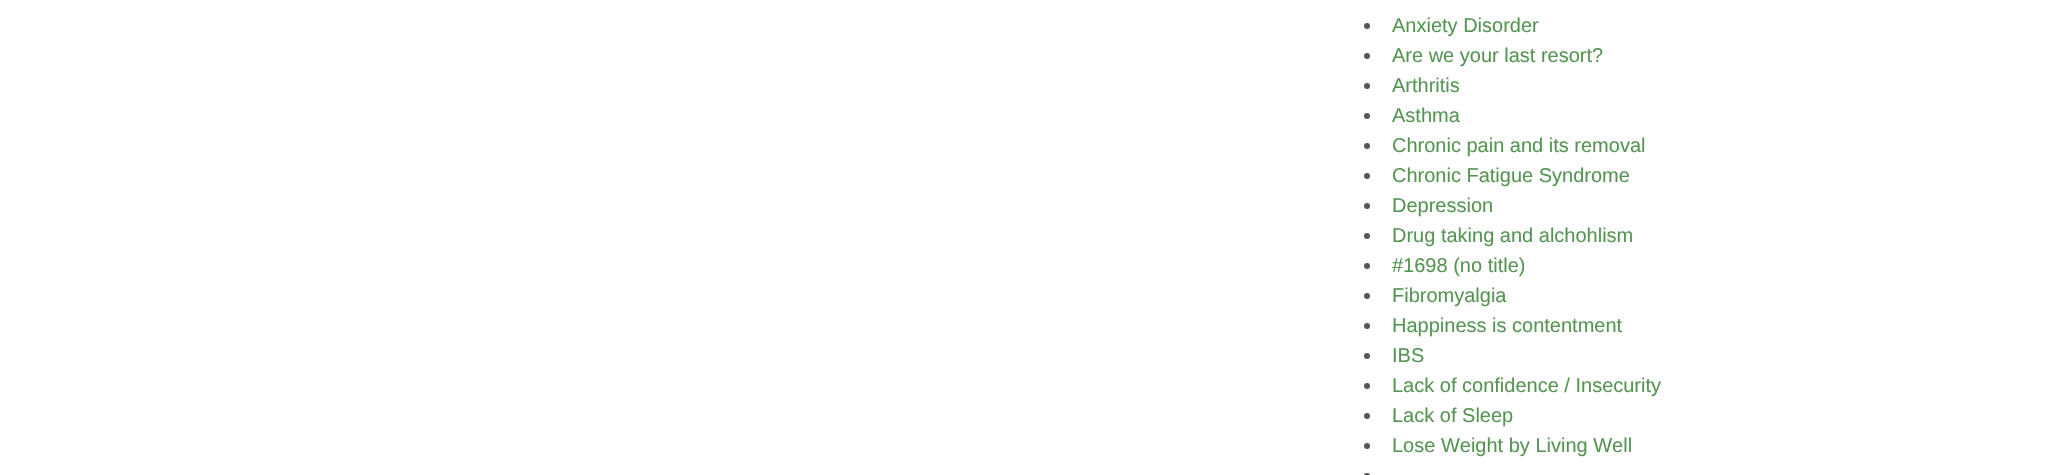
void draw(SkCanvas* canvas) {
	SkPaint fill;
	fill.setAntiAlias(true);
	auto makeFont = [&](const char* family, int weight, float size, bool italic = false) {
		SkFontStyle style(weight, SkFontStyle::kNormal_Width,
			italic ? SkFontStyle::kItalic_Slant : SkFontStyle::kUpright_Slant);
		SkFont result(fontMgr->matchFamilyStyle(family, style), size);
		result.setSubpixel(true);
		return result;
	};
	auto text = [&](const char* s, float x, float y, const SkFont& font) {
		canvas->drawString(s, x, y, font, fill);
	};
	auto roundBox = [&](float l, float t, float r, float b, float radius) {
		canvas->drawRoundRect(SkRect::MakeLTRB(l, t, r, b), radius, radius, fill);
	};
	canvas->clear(0xFFFFFFFF);
	fill.setColor(0xFF555555);
	canvas->drawCircle(1367, 26, 3, fill);
	canvas->drawCircle(1367, 56, 3, fill);
	canvas->drawCircle(1367, 86, 3, fill);
	canvas->drawCircle(1367, 116, 3, fill);
	canvas->drawCircle(1367, 146, 3, fill);
	canvas->drawCircle(1367, 176, 3, fill);
	canvas->drawCircle(1367, 206, 3, fill);
	canvas->drawCircle(1367, 236, 3, fill);
	canvas->drawCircle(1367, 266, 3, fill);
	canvas->drawCircle(1367, 296, 3, fill);
	canvas->drawCircle(1367, 326, 3, fill);
	canvas->drawCircle(1367, 356, 3, fill);
	canvas->drawCircle(1367, 386, 3, fill);
	canvas->drawCircle(1367, 416, 3, fill);
	canvas->drawCircle(1367, 446, 3, fill);
	roundBox(1364, 473, 1370, 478, 3);
	auto font1 = makeFont("Liberation Sans", 400, 20);
	fill.setColor(0xFF559552);
	text("Anxiety Disorder", 1392, 32, font1);
	text("Are we your last resort?", 1392, 62, font1);
	text("Arthritis", 1392, 92, font1);
	text("Asthma", 1392, 122, font1);
	text("Chronic pain and its removal", 1392, 152, font1);
	text("Chronic Fatigue Syndrome", 1392, 182, font1);
	text("Depression", 1392, 212, font1);
	text("Drug taking and alchohlism", 1392, 242, font1);
	text("#1698 (no title)", 1392, 272, font1);
	text("Fibromyalgia", 1392, 302, font1);
	text("Happiness is contentment", 1392, 332, font1);
	text("IBS", 1392, 362, font1);
	text("Lack of confidence / Insecurity", 1392, 392, font1);
	text("Lack of Sleep", 1392, 422, font1);
	text("Lose Weight by Living Well", 1392, 452, font1);
}
